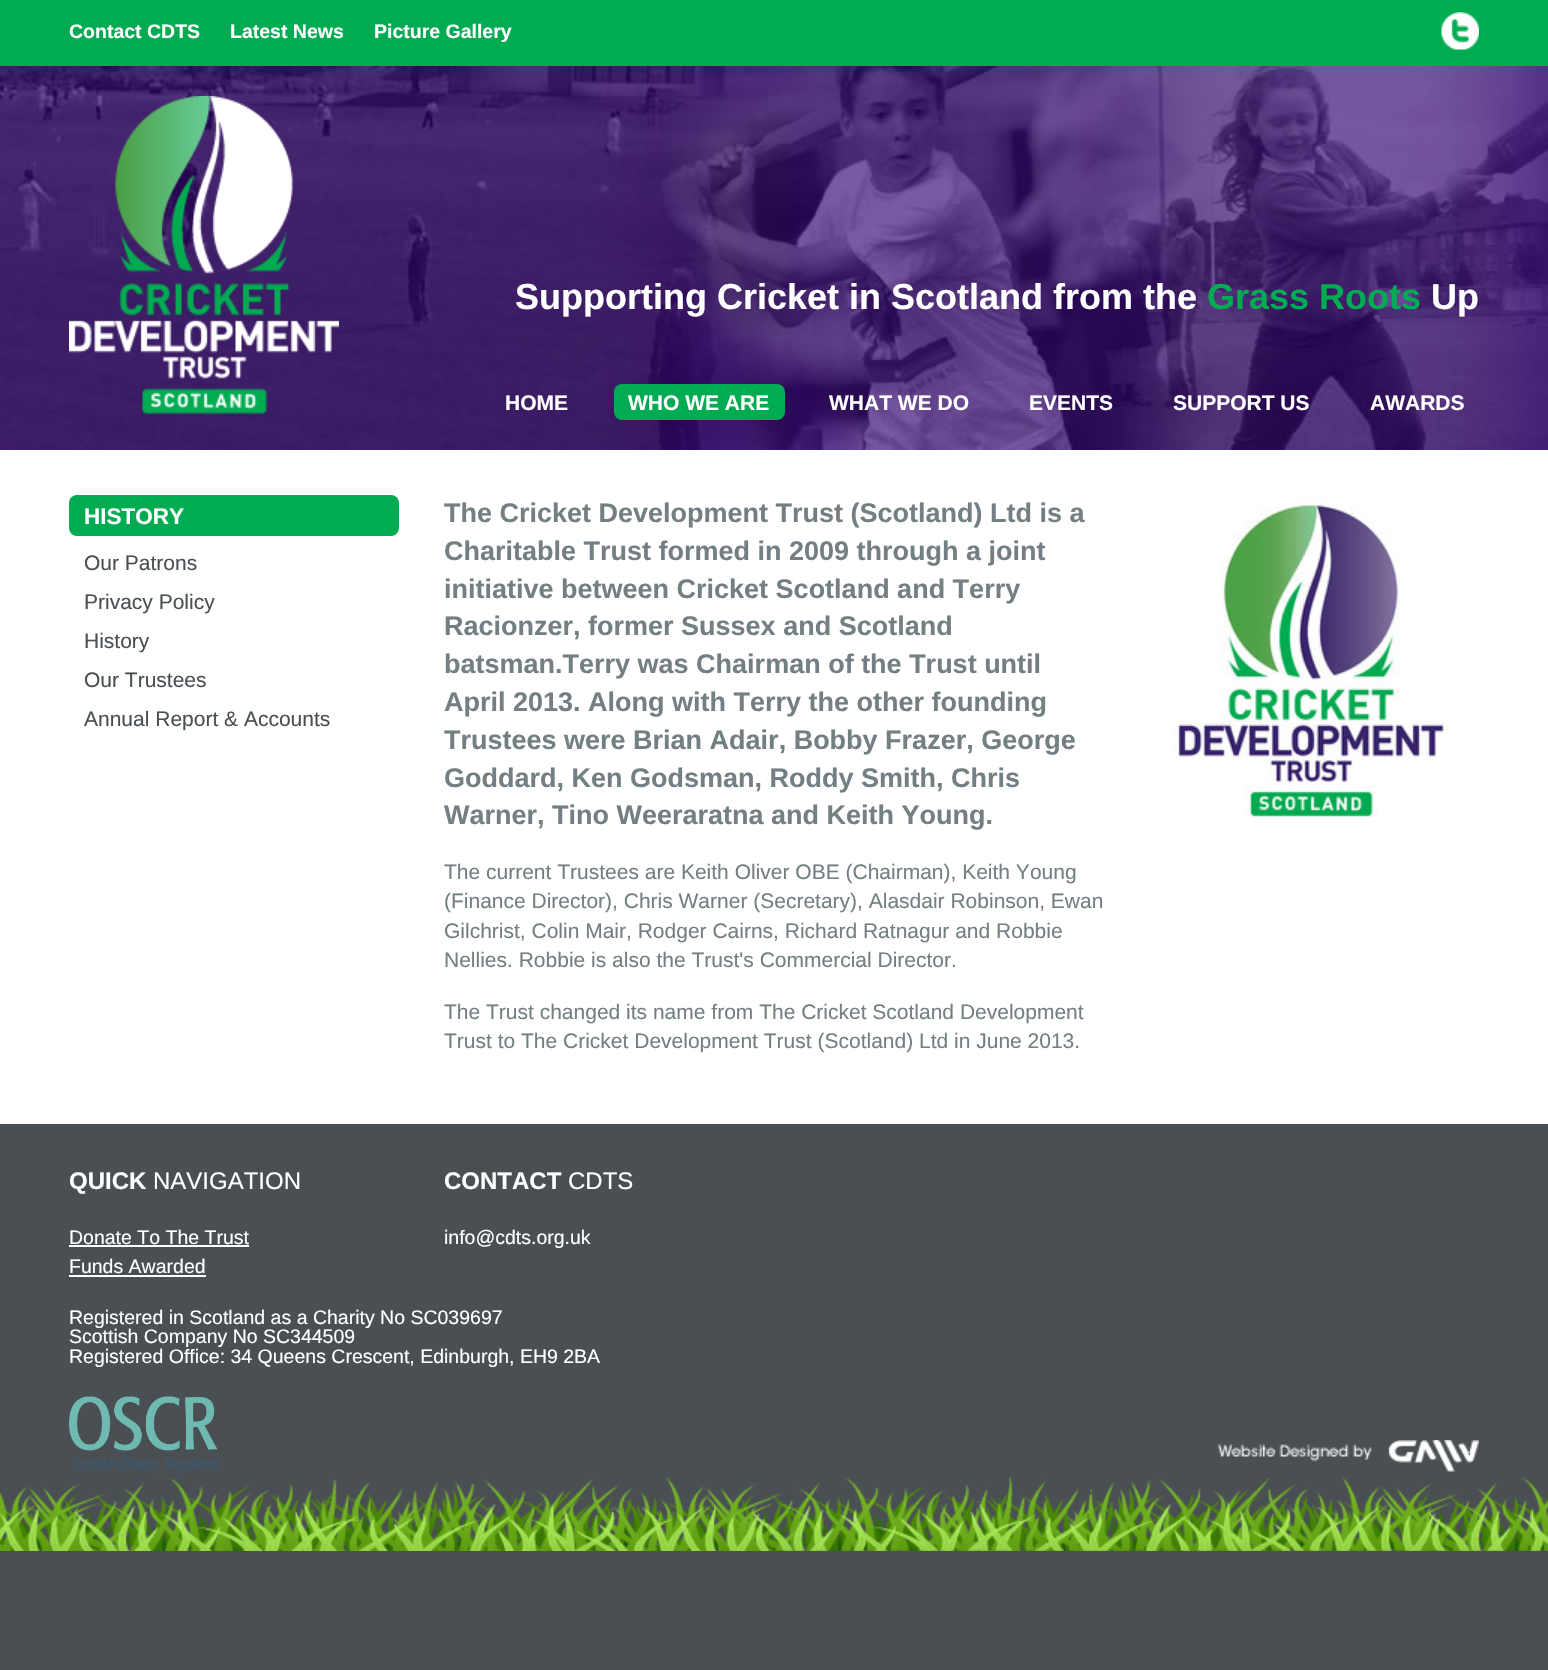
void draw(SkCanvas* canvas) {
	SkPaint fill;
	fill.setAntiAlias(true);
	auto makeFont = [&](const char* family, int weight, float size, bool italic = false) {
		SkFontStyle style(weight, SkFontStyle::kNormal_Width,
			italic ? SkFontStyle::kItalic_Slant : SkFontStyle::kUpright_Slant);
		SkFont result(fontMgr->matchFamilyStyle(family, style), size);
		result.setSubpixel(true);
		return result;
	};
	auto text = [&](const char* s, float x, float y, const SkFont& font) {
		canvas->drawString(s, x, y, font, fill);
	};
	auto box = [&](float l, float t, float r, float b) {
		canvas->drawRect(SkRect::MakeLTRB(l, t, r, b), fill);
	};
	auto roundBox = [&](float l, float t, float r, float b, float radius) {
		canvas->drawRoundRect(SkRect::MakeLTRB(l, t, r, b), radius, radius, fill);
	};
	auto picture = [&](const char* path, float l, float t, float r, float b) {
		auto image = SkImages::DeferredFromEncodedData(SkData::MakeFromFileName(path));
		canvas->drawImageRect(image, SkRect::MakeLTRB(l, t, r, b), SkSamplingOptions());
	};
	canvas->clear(0xFF4A4F54);
	picture("image0.png", 0, 1476, 1548, 1551);
	fill.setColor(0xFF00AB51);
	box(0, 0, 1548, 66);
	picture("image1.png", 1441, 12, 1479, 50);
	picture("image2.png", 0, 66, 1548, 450);
	picture("image3.png", 69, 96, 339, 414);
	roundBox(614, 384, 785, 420, 8);
	fill.setColor(0xFFFFFFFF);
	box(0, 450, 1548, 1124);
	fill.setColor(0xFF00AB51);
	roundBox(69, 495, 399, 536, 8);
	picture("image4.png", 1173, 495, 1449, 819);
	fill.setColor(0xFFFFFFFF);
	box(69, 1245, 249, 1247);
	box(69, 1275, 206, 1277);
	picture("image5.png", 69, 1396, 219, 1473);
	picture("image6.png", 1218, 1440, 1479, 1472);
	auto font1 = makeFont("Liberation Sans", 700, 19.5f);
	text("Contact CDTS", 69, 38, font1);
	text("Latest News", 230, 38, font1);
	text("Picture Gallery", 374, 38, font1);
	auto font2 = makeFont("Liberation Sans", 700, 36);
	text("Supporting Cricket in Scotland from the", 515, 309, font2);
	fill.setColor(0xFF00AB51);
	text("Grass Roots", 1207, 309, font2);
	fill.setColor(0xFFFFFFFF);
	text("Up", 1431, 309, font2);
	auto font3 = makeFont("Liberation Sans", 700, 21);
	text("HOME", 505, 410, font3);
	text("WHO WE ARE", 628, 410, font3);
	text("WHAT WE DO", 829, 410, font3);
	text("EVENTS", 1029, 410, font3);
	text("SUPPORT US", 1173, 410, font3);
	text("AWARDS", 1370, 410, font3);
	auto font4 = makeFont("Liberation Sans", 700, 22.5f);
	text("HISTORY", 84, 524, font4);
	auto font5 = makeFont("Liberation Sans", 400, 21);
	fill.setColor(0xFF4A4F54);
	text("Our Patrons", 84, 570, font5);
	text("Privacy Policy", 84, 609, font5);
	text("History", 84, 648, font5);
	text("Our Trustees", 84, 687, font5);
	text("Annual Report & Accounts", 84, 726, font5);
	auto font6 = makeFont("Liberation Sans", 700, 27);
	fill.setColor(0xFF737F83);
	text("The Cricket Development Trust (Scotland) Ltd is a", 444, 522, font6);
	text("Charitable Trust formed in 2009 through a joint", 444, 560, font6);
	text("initiative between Cricket Scotland and Terry", 444, 598, font6);
	text("Racionzer, former Sussex and Scotland", 444, 635, font6);
	text("batsman.Terry was Chairman of the Trust until", 444, 673, font6);
	text("April 2013. Along with Terry the other founding", 444, 711, font6);
	text("Trustees were Brian Adair, Bobby Frazer, George", 444, 749, font6);
	text("Goddard, Ken Godsman, Roddy Smith, Chris", 444, 787, font6);
	text("Warner, Tino Weeraratna and Keith Young.", 444, 824, font6);
	text("The current Trustees are Keith Oliver OBE (Chairman), Keith Young", 444, 879, font5);
	text("(Finance Director), Chris Warner (Secretary), Alasdair Robinson, Ewan", 444, 908, font5);
	text("Gilchrist, Colin Mair, Rodger Cairns, Richard Ratnagur and Robbie", 444, 938, font5);
	text("Nellies. Robbie is also the Trust's Commercial Director.", 444, 967, font5);
	text("The Trust changed its name from The Cricket Scotland Development", 444, 1019, font5);
	text("Trust to The Cricket Development Trust (Scotland) Ltd in June 2013.", 444, 1048, font5);
	auto font7 = makeFont("Liberation Sans", 700, 24);
	fill.setColor(0xFFFFFFFF);
	text("QUICK", 69, 1189, font7);
	auto font8 = makeFont("Liberation Sans", 400, 24);
	text("NAVIGATION", 153, 1189, font8);
	auto font9 = makeFont("Liberation Sans", 400, 19.5f);
	text("Donate To The Trust", 69, 1244, font9);
	text("Funds Awarded", 69, 1273, font9);
	text("CONTACT", 444, 1189, font7);
	text("CDTS", 568, 1189, font8);
	text("info@cdts.org.uk", 444, 1244, font9);
	text("Registered in Scotland as a Charity No SC039697", 69, 1324, font9);
	text("Scottish Company No SC344509", 69, 1343, font9);
	text("Registered Office: 34 Queens Crescent, Edinburgh, EH9 2BA", 69, 1363, font9);
}
